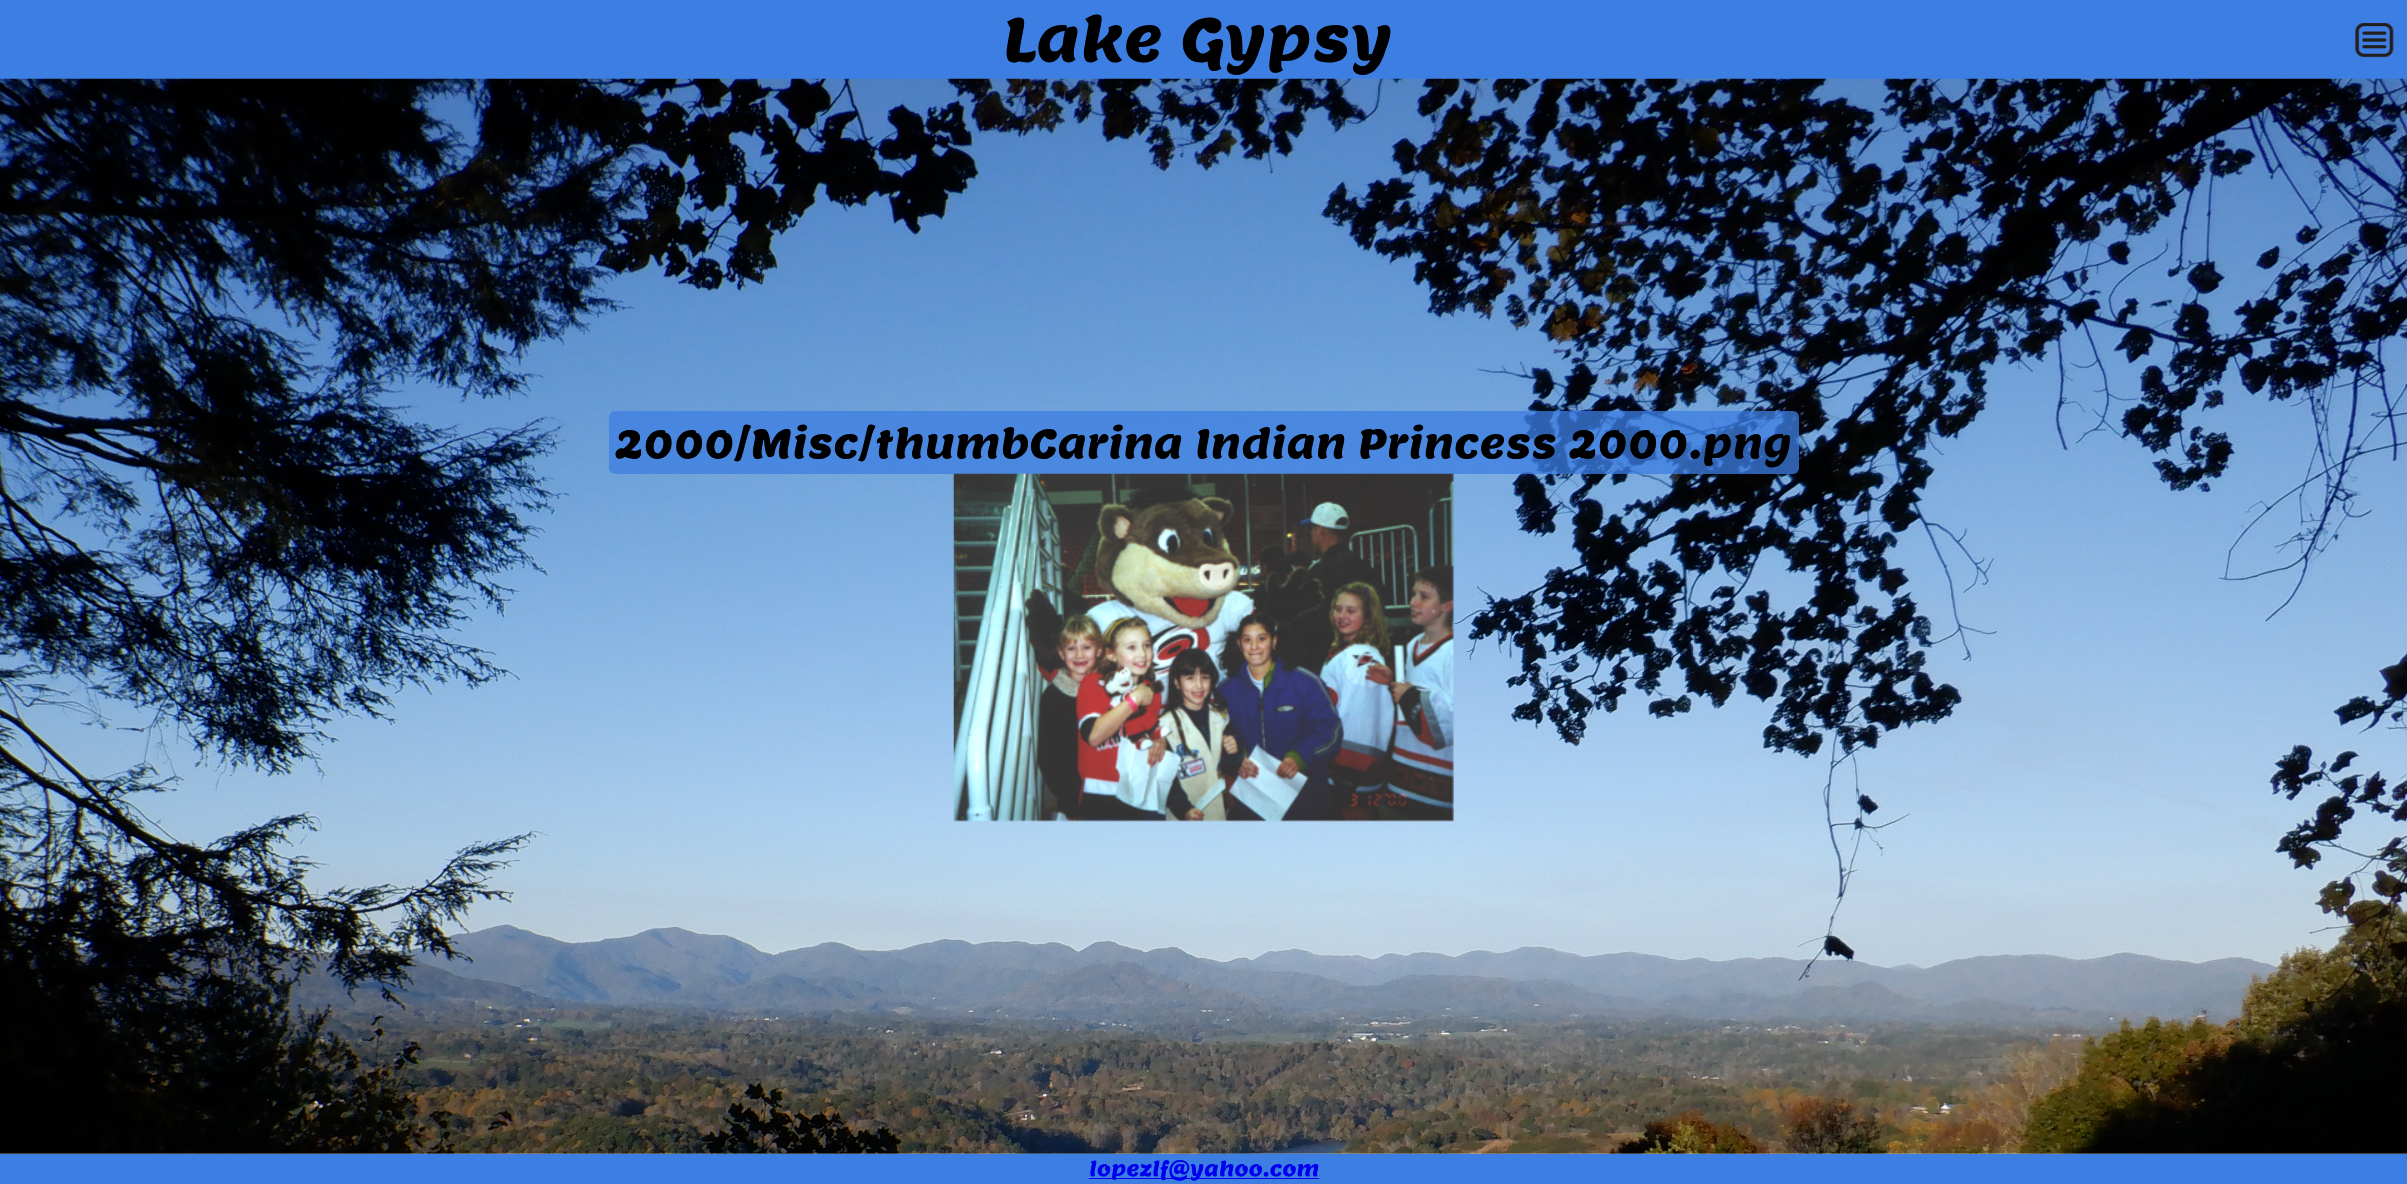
void draw(SkCanvas* canvas) {
	SkPaint fill;
	fill.setAntiAlias(true);
	auto makeFont = [&](const char* family, int weight, float size, bool italic = false) {
		SkFontStyle style(weight, SkFontStyle::kNormal_Width,
			italic ? SkFontStyle::kItalic_Slant : SkFontStyle::kUpright_Slant);
		SkFont result(fontMgr->matchFamilyStyle(family, style), size);
		result.setSubpixel(true);
		return result;
	};
	auto text = [&](const char* s, float x, float y, const SkFont& font) {
		canvas->drawString(s, x, y, font, fill);
	};
	auto box = [&](float l, float t, float r, float b) {
		canvas->drawRect(SkRect::MakeLTRB(l, t, r, b), fill);
	};
	auto roundBox = [&](float l, float t, float r, float b, float radius) {
		canvas->drawRoundRect(SkRect::MakeLTRB(l, t, r, b), radius, radius, fill);
	};
	auto picture = [&](const char* path, float l, float t, float r, float b) {
		auto image = SkImages::DeferredFromEncodedData(SkData::MakeFromFileName(path));
		canvas->drawImageRect(image, SkRect::MakeLTRB(l, t, r, b), SkSamplingOptions());
	};
	canvas->clear(0xFFFFFFFF);
	fill.setColor(0xFF3C7EE2);
	box(0, 0, 2407, 79);
	picture("image0.png", 2355, 23, 2394, 58);
	picture("image1.png", 0, 78, 2407, 1154);
	fill.setColor(0xBF3C7EE2);
	roundBox(609, 411, 1799, 474, 6);
	picture("image2.png", 953, 473, 1454, 822);
	fill.setColor(0xFF3C7EE2);
	box(0, 1154, 2407, 1184);
	fill.setColor(0xFF0000EE);
	box(1089, 1178, 1319, 1179);
	auto font1 = makeFont("Lemon", 400, 60);
	fill.setColor(0xFF000000);
	text("Lake Gypsy", 1003, 61, font1);
	auto font2 = makeFont("Lemon", 400, 40);
	text("2000/Misc/thumbCarina Indian Princess 2000.png", 615, 458, font2);
	auto font3 = makeFont("Lemon", 400, 20);
	fill.setColor(0xFF0000EE);
	text("lopezlf@yahoo.com", 1089, 1176, font3);
}
